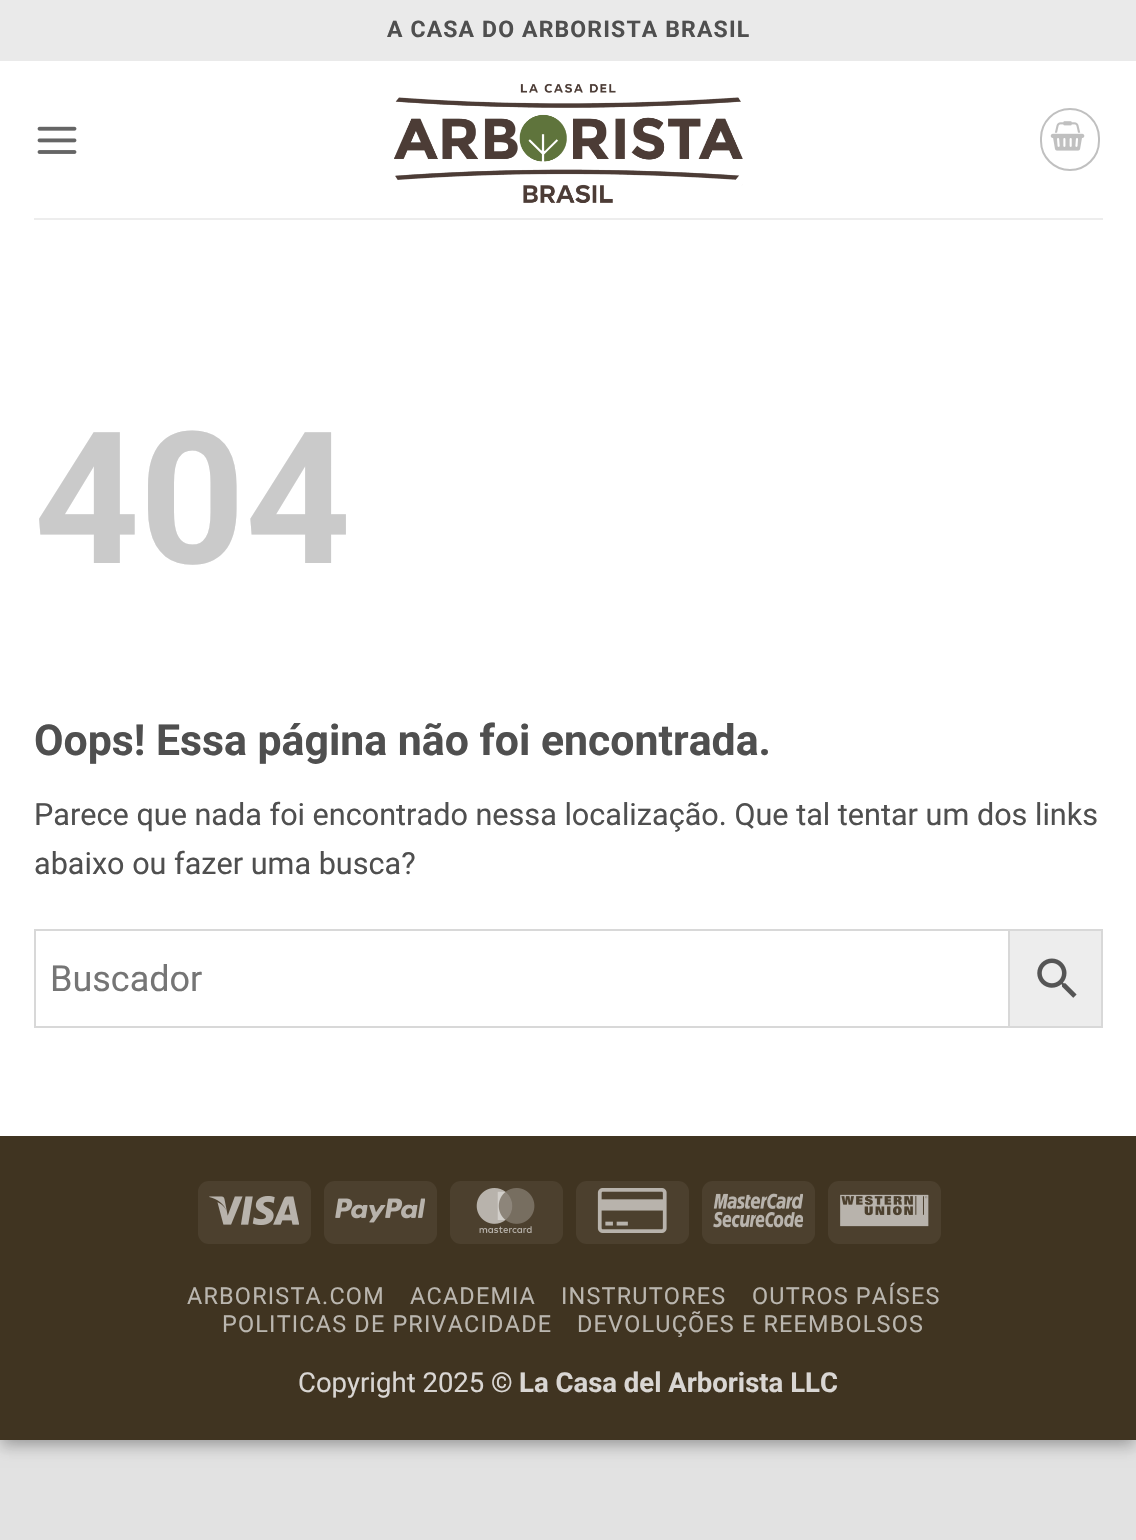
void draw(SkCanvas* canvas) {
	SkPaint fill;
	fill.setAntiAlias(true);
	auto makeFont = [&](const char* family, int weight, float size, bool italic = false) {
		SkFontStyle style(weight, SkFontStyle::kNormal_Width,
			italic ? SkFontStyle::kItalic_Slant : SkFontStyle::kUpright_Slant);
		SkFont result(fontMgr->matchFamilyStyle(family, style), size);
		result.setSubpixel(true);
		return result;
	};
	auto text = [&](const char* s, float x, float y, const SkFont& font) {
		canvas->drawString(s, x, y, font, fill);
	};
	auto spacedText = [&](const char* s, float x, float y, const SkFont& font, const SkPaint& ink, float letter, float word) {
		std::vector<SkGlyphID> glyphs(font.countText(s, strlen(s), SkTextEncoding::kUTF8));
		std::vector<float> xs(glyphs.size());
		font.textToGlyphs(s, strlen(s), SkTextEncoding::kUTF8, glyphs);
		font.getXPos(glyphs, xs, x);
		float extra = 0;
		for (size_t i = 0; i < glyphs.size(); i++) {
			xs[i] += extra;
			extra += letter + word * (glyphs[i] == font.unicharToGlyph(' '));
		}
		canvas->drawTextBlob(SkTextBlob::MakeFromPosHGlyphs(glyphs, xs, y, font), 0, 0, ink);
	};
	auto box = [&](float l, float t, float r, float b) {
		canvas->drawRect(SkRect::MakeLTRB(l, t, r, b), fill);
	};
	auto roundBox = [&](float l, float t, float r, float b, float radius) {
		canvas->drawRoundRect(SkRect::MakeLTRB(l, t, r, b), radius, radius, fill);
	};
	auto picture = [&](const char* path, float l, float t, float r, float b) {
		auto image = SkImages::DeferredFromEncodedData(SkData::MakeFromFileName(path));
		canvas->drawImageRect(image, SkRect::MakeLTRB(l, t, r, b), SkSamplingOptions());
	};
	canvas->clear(0xFFE2E2E2);
	fill.setColor(0x3B000000);
	fill.setMaskFilter(SkMaskFilter::MakeBlur(kNormal_SkBlurStyle, 7));
	canvas->drawRect(SkRect::MakeLTRB(0, 7, 1136, 1447), fill);
	fill.setMaskFilter(nullptr);
	fill.setColor(0x29000000);
	fill.setMaskFilter(SkMaskFilter::MakeBlur(kNormal_SkBlurStyle, 7));
	canvas->drawRect(SkRect::MakeLTRB(9, 16, 1127, 1438), fill);
	fill.setMaskFilter(nullptr);
	fill.setColor(0xFFFFFFFF);
	box(0, 61, 1136, 1136);
	fill.setColor(0xFFEAEAEA);
	box(0, 0, 1136, 61);
	picture("image0.png", 37, 126, 77, 154);
	picture("image1.png", 394, 83, 743, 203);
	fill.setStyle(SkPaint::kStroke_Style);
	fill.setStrokeWidth(2);
	fill.setColor(0xFFC0C0C0);
	canvas->drawRoundRect(SkRect::MakeLTRB(1041, 109, 1099, 170), 29, 29, fill);
	picture("image2.png", 1050, 121, 1085, 151);
	fill.setStyle(SkPaint::kFill_Style);
	fill.setColor(0xFFEDEDED);
	box(34, 218, 1103, 220);
	canvas->drawRect(SkRect::MakeLTRB(1009, 930, 1102, 1027), fill);
	fill.setStyle(SkPaint::kStroke_Style);
	fill.setColor(0xFFD8D8D8);
	canvas->drawRect(SkRect::MakeLTRB(1009, 930, 1102, 1027), fill);
	canvas->drawRect(SkRect::MakeLTRB(35, 930, 1009, 1027), fill);
	picture("image3.png", 1037, 958, 1077, 998);
	fill.setStyle(SkPaint::kFill_Style);
	fill.setColor(0xFF403421);
	box(0, 1136, 1136, 1440);
	fill.setColor(0xFF4C402E);
	roundBox(198, 1181, 311, 1244, 11);
	picture("image4.png", 209, 1196, 299, 1225);
	roundBox(324, 1181, 437, 1244, 11);
	picture("image5.png", 335, 1198, 425, 1223);
	roundBox(450, 1181, 563, 1244, 11);
	picture("image6.png", 476, 1188, 535, 1233);
	roundBox(576, 1181, 689, 1244, 11);
	picture("image7.png", 597, 1188, 667, 1233);
	roundBox(702, 1181, 815, 1244, 11);
	picture("image8.png", 713, 1193, 803, 1228);
	roundBox(828, 1181, 941, 1244, 11);
	picture("image9.png", 840, 1194, 929, 1227);
	auto font1 = makeFont("Roboto", 700, 23);
	fill.setColor(0xFF4F4F4F);
	spacedText("A CASA DO ARBORISTA BRASIL", 387, 37, font1, fill, 1.15f, 0);
	auto font2 = makeFont("Roboto", 700, 184);
	fill.setColor(0xFFCACACA);
	text("404", 34, 563, font2);
	auto font3 = makeFont("Roboto", 700, 42.8f);
	fill.setColor(0xFF4F4F4F);
	text("Oops! Essa página não foi encontrada.", 34, 755, font3);
	auto font4 = makeFont("Roboto", 400, 30.6f);
	text("Parece que nada foi encontrado nessa localização. Que tal tentar um dos links", 34, 825, font4);
	text("abaixo ou fazer uma busca?", 34, 874, font4);
	auto font5 = makeFont("Roboto", 400, 36);
	fill.setColor(0xFF757575);
	text("Buscador", 50, 991, font5);
	auto font6 = makeFont("Roboto", 400, 23.4f);
	fill.setColor(0xFFBAB6AF);
	spacedText("ARBORISTA.COM", 187, 1304, font6, fill, 1.2f, 0);
	spacedText("ACADEMIA", 410, 1304, font6, fill, 1.2f, 0);
	spacedText("INSTRUTORES", 561, 1304, font6, fill, 1.2f, 0);
	spacedText("OUTROS PAÍSES", 752, 1304, font6, fill, 1.2f, 0);
	spacedText("POLITICAS DE PRIVACIDADE", 222, 1332, font6, fill, 1.2f, 0);
	spacedText("DEVOLUÇÕES E REEMBOLSOS", 577, 1332, font6, fill, 1.2f, 0);
	auto font7 = makeFont("Roboto", 400, 27.5f);
	fill.setColor(0xFFD9D6D3);
	text("Copyright 2025 ©", 298, 1392, font7);
	auto font8 = makeFont("Roboto", 700, 27.5f);
	text("La Casa del Arborista LLC", 519, 1392, font8);
}
